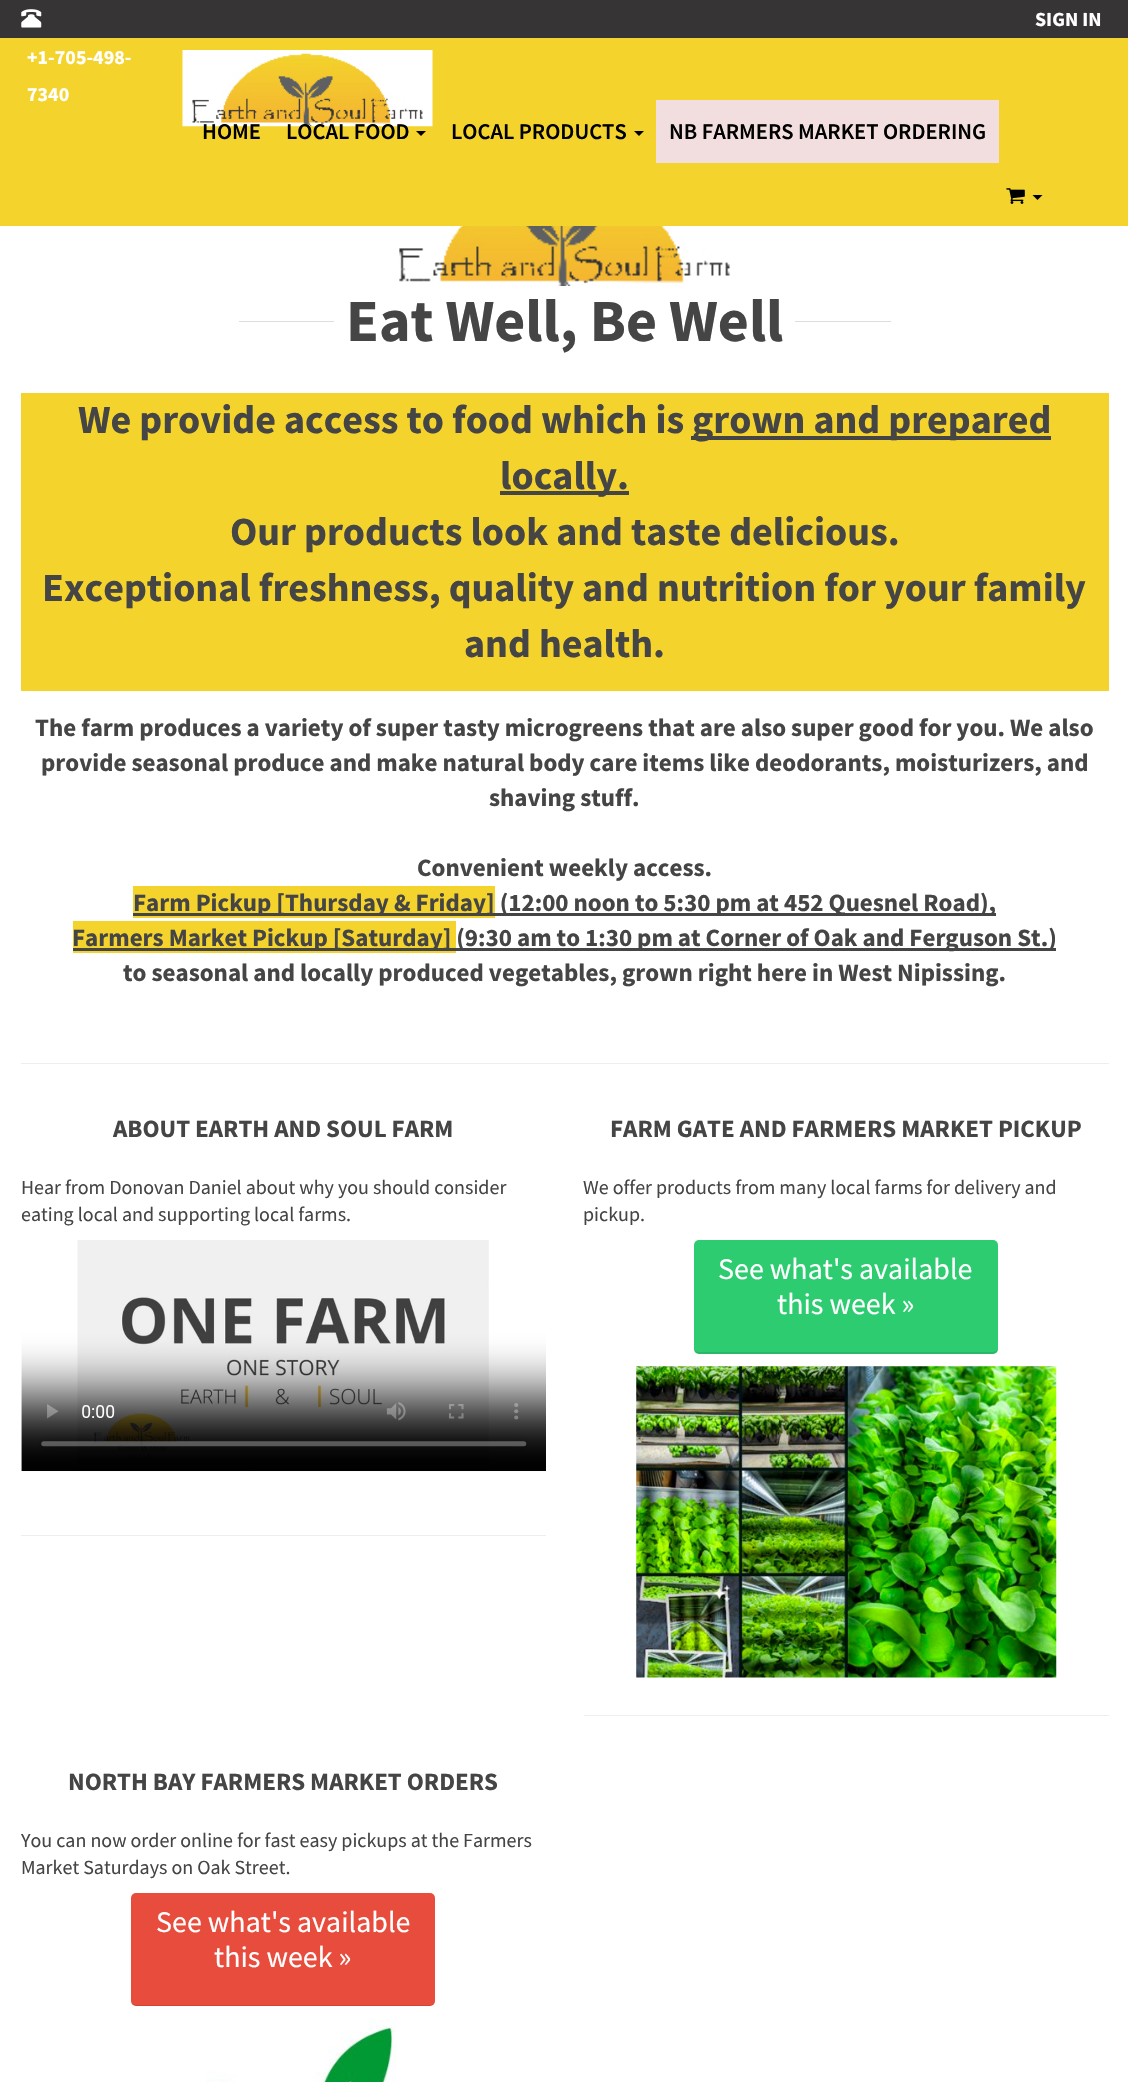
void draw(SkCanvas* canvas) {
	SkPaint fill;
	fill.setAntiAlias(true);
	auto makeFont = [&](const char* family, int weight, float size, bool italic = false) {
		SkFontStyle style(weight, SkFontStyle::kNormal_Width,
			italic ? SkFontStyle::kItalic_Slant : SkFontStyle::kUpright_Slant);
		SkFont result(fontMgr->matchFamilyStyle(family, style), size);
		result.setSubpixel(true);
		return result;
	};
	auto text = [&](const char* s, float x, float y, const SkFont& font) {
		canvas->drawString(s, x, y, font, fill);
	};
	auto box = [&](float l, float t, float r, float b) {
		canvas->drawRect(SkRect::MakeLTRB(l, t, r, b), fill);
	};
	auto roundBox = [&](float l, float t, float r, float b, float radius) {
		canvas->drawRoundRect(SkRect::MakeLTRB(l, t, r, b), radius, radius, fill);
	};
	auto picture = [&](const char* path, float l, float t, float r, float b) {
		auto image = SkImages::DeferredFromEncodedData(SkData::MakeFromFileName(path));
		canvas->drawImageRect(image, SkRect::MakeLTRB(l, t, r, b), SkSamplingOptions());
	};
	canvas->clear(0xFFFFFFFF);
	fill.setColor(0xFFF4D32C);
	box(0, 38, 1128, 226);
	fill.setColor(0xFF373435);
	box(0, 0, 1128, 38);
	picture("image0.png", 21, 9, 42, 28);
	picture("image1.png", 182, 50, 433, 127);
	fill.setColor(0xFF000000);
	canvas->drawPath(SkPathBuilder().moveTo(416, 131).lineTo(426, 131).lineTo(421, 136).close().detach(), fill);
	canvas->drawPath(SkPathBuilder().moveTo(634, 131).lineTo(644, 131).lineTo(639, 136).close().detach(), fill);
	fill.setColor(0xFFF2DEDE);
	box(656, 100, 999, 163);
	picture("image2.png", 1006, 188, 1025, 204);
	fill.setColor(0xFF000000);
	canvas->drawPath(SkPathBuilder().moveTo(1032.5f, 195).lineTo(1042.5f, 195).lineTo(1037.5f, 200).close().detach(), fill);
	picture("image3.png", 399, 226, 730, 286);
	fill.setColor(0xFFDDDDDD);
	box(239, 321, 891, 322);
	fill.setColor(0xFFFFFFFF);
	box(334, 321, 795, 322);
	fill.setColor(0xFFF4D32C);
	box(21, 393, 1109, 691);
	fill.setColor(0xFF454545);
	box(691, 436, 1051, 440);
	box(500, 491, 629, 495);
	fill.setColor(0xFFF4D32C);
	box(133, 886, 495, 918);
	fill.setColor(0xFF454545);
	box(133, 913, 996, 916);
	fill.setColor(0xFFF4D32C);
	box(73, 921, 456, 953);
	fill.setColor(0xFF454545);
	box(73, 948, 1056, 951);
	fill.setColor(0xFFEEEEEE);
	box(21, 1063, 1109, 1064);
	picture("image4.png", 21, 1240, 546, 1472);
	box(21, 1535, 546, 1536);
	fill.setColor(0xFF2ECC71);
	roundBox(694, 1240, 998, 1354, 5);
	fill.setColor(0x1A000000);
	canvas->drawPath(SkPathBuilder().moveTo(694, 1348).cubicTo(694, 1351, 696, 1354, 699, 1354).lineTo(993, 1354).cubicTo(996, 1354, 998, 1351, 998, 1348).cubicTo(998, 1350, 995, 1352, 992, 1352).lineTo(699, 1352).cubicTo(696, 1352, 694, 1350, 694, 1348).close().detach(), fill);
	picture("image5.png", 636, 1366, 1057, 1678);
	fill.setColor(0xFFEEEEEE);
	box(584, 1715, 1109, 1716);
	fill.setColor(0xFFE74C3C);
	roundBox(131, 1893, 435, 2006, 5);
	fill.setColor(0x1A000000);
	canvas->drawPath(SkPathBuilder().moveTo(131, 2000).cubicTo(131, 2003, 133, 2006, 136, 2006).lineTo(430, 2006).cubicTo(433, 2006, 435, 2003, 435, 2000).cubicTo(435, 2003, 433, 2005, 430, 2005).lineTo(136, 2005).cubicTo(133, 2005, 131, 2003, 131, 2000).close().detach(), fill);
	picture("image6.png", 206, 2019, 397, 2082);
	auto font1 = makeFont("Source Sans Pro", 700, 20);
	fill.setColor(0xFFFFFFFF);
	text("SIGN IN", 1035, 26, font1);
	text("+1-705-498-", 27, 64, font1);
	text("7340", 27, 101, font1);
	auto font2 = makeFont("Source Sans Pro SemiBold", 600, 22.5f);
	fill.setColor(0xFF000000);
	text("HOME", 202, 139, font2);
	text("LOCAL FOOD", 286, 139, font2);
	text("LOCAL PRODUCTS", 451, 139, font2);
	text("NB FARMERS MARKET ORDERING", 669, 139, font2);
	auto font3 = makeFont("Source Sans Pro", 700, 60);
	fill.setColor(0xFF454545);
	text("Eat Well, Be Well", 346, 341, font3);
	auto font4 = makeFont("Source Sans Pro", 700, 40);
	text("We provide access to food which is", 78, 433, font4);
	text("grown and prepared", 692, 433, font4);
	text("locally.", 500, 489, font4);
	text("Our products look and taste delicious.", 230, 545, font4);
	text("Exceptional freshness, quality and nutrition for your family", 42, 601, font4);
	text("and health.", 464, 657, font4);
	auto font5 = makeFont("Source Sans Pro", 700, 25);
	text("The farm produces a variety of super tasty microgreens that are also super good for you. We also", 35, 736, font5);
	text("provide seasonal produce and make natural body care items like deodorants, moisturizers, and", 41, 771, font5);
	text("shaving stuff.", 489, 806, font5);
	text("Convenient weekly access.", 417, 876, font5);
	text("Farm Pickup [Thursday & Friday] (12:00 noon to 5:30 pm at 452 Quesnel Road),", 133, 911, font5);
	text("Farmers Market Pickup [Saturday] (9:30 am to 1:30 pm at Corner of Oak and Ferguson St.)", 72, 946, font5);
	text("to seasonal and locally produced vegetables, grown right here in West Nipissing.", 123, 981, font5);
	text("ABOUT EARTH AND SOUL FARM", 113, 1137, font5);
	auto font6 = makeFont("Source Sans Pro", 400, 20);
	text("Hear from Donovan Daniel about why you should consider", 21, 1194, font6);
	text("eating local and supporting local farms.", 21, 1221, font6);
	text("FARM GATE AND FARMERS MARKET PICKUP", 610, 1137, font5);
	text("We offer products from many local farms for delivery and", 583, 1194, font6);
	text("pickup.", 583, 1221, font6);
	auto font7 = makeFont("Source Sans Pro", 400, 30);
	fill.setColor(0xFFFFFFFF);
	text("See what's available", 718, 1279, font7);
	text("this week »", 777, 1314, font7);
	fill.setColor(0xFF454545);
	text("NORTH BAY FARMERS MARKET ORDERS", 68, 1790, font5);
	text("You can now order online for fast easy pickups at the Farmers", 21, 1847, font6);
	text("Market Saturdays on Oak Street.", 21, 1874, font6);
	fill.setColor(0xFFFFFFFF);
	text("See what's available", 156, 1932, font7);
	text("this week »", 214, 1967, font7);
}
